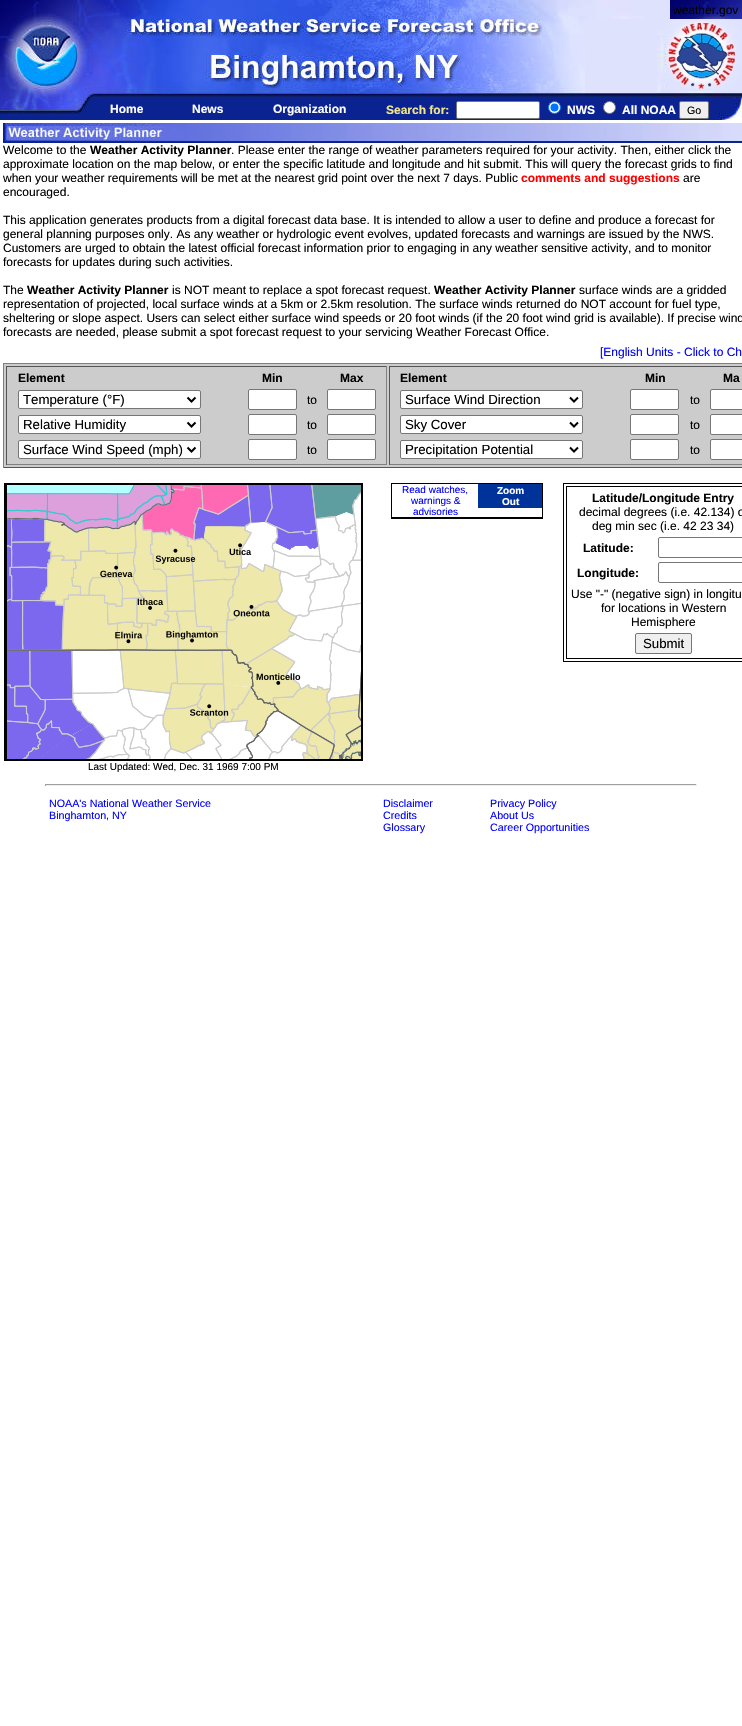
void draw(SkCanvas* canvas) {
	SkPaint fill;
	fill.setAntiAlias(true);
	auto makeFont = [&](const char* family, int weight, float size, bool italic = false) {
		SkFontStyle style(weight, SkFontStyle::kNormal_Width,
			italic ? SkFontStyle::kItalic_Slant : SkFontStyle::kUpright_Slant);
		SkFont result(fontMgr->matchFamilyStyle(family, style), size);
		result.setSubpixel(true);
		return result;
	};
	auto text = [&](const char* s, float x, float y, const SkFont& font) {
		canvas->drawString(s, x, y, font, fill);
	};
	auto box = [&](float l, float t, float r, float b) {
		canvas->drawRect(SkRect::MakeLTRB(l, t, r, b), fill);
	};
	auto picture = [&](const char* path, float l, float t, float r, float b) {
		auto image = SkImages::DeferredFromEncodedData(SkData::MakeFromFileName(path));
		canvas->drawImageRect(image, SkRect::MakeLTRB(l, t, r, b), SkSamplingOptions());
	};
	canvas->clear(0xFFFFFFFF);
	picture("image0.png", 0, 0, 742, 19);
	picture("image1.png", 0, 19, 85, 97);
	picture("image2.png", 85, 19, 585, 39);
	picture("image3.png", 585, 19, 657, 97);
	picture("image4.png", 657, 19, 742, 97);
	picture("image5.png", 85, 39, 585, 97);
	fill.setColor(0xFF0A2390);
	box(0, 97, 718, 120);
	picture("image6.png", 0, 97, 92, 119);
	fill.setColor(0xFFFFFFFF);
	canvas->drawRoundRect(SkRect::MakeLTRB(456.5f, 101.5f, 539.5f, 118.5f), 1.5f, 1.5f, fill);
	fill.setStyle(SkPaint::kStroke_Style);
	fill.setStrokeWidth(1);
	fill.setColor(0xFF767676);
	canvas->drawRoundRect(SkRect::MakeLTRB(456.5f, 101.5f, 539.5f, 118.5f), 1.5f, 1.5f, fill);
	fill.setStyle(SkPaint::kFill_Style);
	fill.setColor(0xFFFFFFFF);
	canvas->drawCircle(554.5f, 107.5f, 6, fill);
	fill.setStyle(SkPaint::kStroke_Style);
	fill.setColor(0xFF0075FF);
	canvas->drawCircle(554.5f, 107.5f, 6, fill);
	fill.setStyle(SkPaint::kFill_Style);
	canvas->drawCircle(554.5f, 107.5f, 4, fill);
	fill.setColor(0xFFFFFFFF);
	canvas->drawCircle(609.5f, 107.5f, 6, fill);
	fill.setStyle(SkPaint::kStroke_Style);
	fill.setColor(0xFF767676);
	canvas->drawCircle(609.5f, 107.5f, 6, fill);
	fill.setStyle(SkPaint::kFill_Style);
	fill.setColor(0xFFEFEFEF);
	canvas->drawRoundRect(SkRect::MakeLTRB(679.5f, 101.5f, 708.5f, 118.5f), 1.5f, 1.5f, fill);
	fill.setStyle(SkPaint::kStroke_Style);
	fill.setColor(0xFF767676);
	canvas->drawRoundRect(SkRect::MakeLTRB(679.5f, 101.5f, 708.5f, 118.5f), 1.5f, 1.5f, fill);
	picture("image7.png", 718, 97, 742, 120);
	picture("image8.png", 3, 123, 742, 143);
	fill.setStyle(SkPaint::kFill_Style);
	fill.setColor(0xFFCCCCCC);
	box(4, 364, 742, 467);
	fill.setColor(0xFF808080);
	box(3, 363, 742, 364);
	fill.setColor(0xFF555555);
	box(3, 467, 742, 468);
	fill.setColor(0xFF808080);
	box(3, 363, 4, 468);
	fill.setColor(0xFF555555);
	box(6, 366, 387, 367);
	fill.setColor(0xFF808080);
	box(386, 366, 387, 465);
	box(6, 464, 387, 465);
	fill.setColor(0xFF555555);
	box(6, 366, 7, 465);
	fill.setColor(0xFFFFFFFF);
	canvas->drawRoundRect(SkRect::MakeLTRB(18.5f, 390.5f, 200.5f, 408.5f), 1.5f, 1.5f, fill);
	fill.setStyle(SkPaint::kStroke_Style);
	fill.setColor(0xFF767676);
	canvas->drawRoundRect(SkRect::MakeLTRB(18.5f, 390.5f, 200.5f, 408.5f), 1.5f, 1.5f, fill);
	fill.setStrokeWidth(2);
	fill.setColor(0xFF000000);
	canvas->drawPath(SkPathBuilder().moveTo(187.5f, 397.5f).lineTo(191.5f, 401.5f).lineTo(195.5f, 397.5f).detach(), fill);
	fill.setStyle(SkPaint::kFill_Style);
	fill.setColor(0xFFFFFFFF);
	canvas->drawRoundRect(SkRect::MakeLTRB(248.5f, 389.5f, 296.5f, 409.5f), 1.5f, 1.5f, fill);
	fill.setStyle(SkPaint::kStroke_Style);
	fill.setStrokeWidth(1);
	fill.setColor(0xFF767676);
	canvas->drawRoundRect(SkRect::MakeLTRB(248.5f, 389.5f, 296.5f, 409.5f), 1.5f, 1.5f, fill);
	fill.setStyle(SkPaint::kFill_Style);
	fill.setColor(0xFFFFFFFF);
	canvas->drawRoundRect(SkRect::MakeLTRB(327.5f, 389.5f, 375.5f, 409.5f), 1.5f, 1.5f, fill);
	fill.setStyle(SkPaint::kStroke_Style);
	fill.setColor(0xFF767676);
	canvas->drawRoundRect(SkRect::MakeLTRB(327.5f, 389.5f, 375.5f, 409.5f), 1.5f, 1.5f, fill);
	fill.setStyle(SkPaint::kFill_Style);
	fill.setColor(0xFFFFFFFF);
	canvas->drawRoundRect(SkRect::MakeLTRB(18.5f, 415.5f, 200.5f, 433.5f), 1.5f, 1.5f, fill);
	fill.setStyle(SkPaint::kStroke_Style);
	fill.setColor(0xFF767676);
	canvas->drawRoundRect(SkRect::MakeLTRB(18.5f, 415.5f, 200.5f, 433.5f), 1.5f, 1.5f, fill);
	fill.setStrokeWidth(2);
	fill.setColor(0xFF000000);
	canvas->drawPath(SkPathBuilder().moveTo(187.5f, 422.5f).lineTo(191.5f, 426.5f).lineTo(195.5f, 422.5f).detach(), fill);
	fill.setStyle(SkPaint::kFill_Style);
	fill.setColor(0xFFFFFFFF);
	canvas->drawRoundRect(SkRect::MakeLTRB(248.5f, 414.5f, 296.5f, 434.5f), 1.5f, 1.5f, fill);
	fill.setStyle(SkPaint::kStroke_Style);
	fill.setStrokeWidth(1);
	fill.setColor(0xFF767676);
	canvas->drawRoundRect(SkRect::MakeLTRB(248.5f, 414.5f, 296.5f, 434.5f), 1.5f, 1.5f, fill);
	fill.setStyle(SkPaint::kFill_Style);
	fill.setColor(0xFFFFFFFF);
	canvas->drawRoundRect(SkRect::MakeLTRB(327.5f, 414.5f, 375.5f, 434.5f), 1.5f, 1.5f, fill);
	fill.setStyle(SkPaint::kStroke_Style);
	fill.setColor(0xFF767676);
	canvas->drawRoundRect(SkRect::MakeLTRB(327.5f, 414.5f, 375.5f, 434.5f), 1.5f, 1.5f, fill);
	fill.setStyle(SkPaint::kFill_Style);
	fill.setColor(0xFFFFFFFF);
	canvas->drawRoundRect(SkRect::MakeLTRB(18.5f, 440.5f, 200.5f, 458.5f), 1.5f, 1.5f, fill);
	fill.setStyle(SkPaint::kStroke_Style);
	fill.setColor(0xFF767676);
	canvas->drawRoundRect(SkRect::MakeLTRB(18.5f, 440.5f, 200.5f, 458.5f), 1.5f, 1.5f, fill);
	fill.setStrokeWidth(2);
	fill.setColor(0xFF000000);
	canvas->drawPath(SkPathBuilder().moveTo(187.5f, 447.5f).lineTo(191.5f, 451.5f).lineTo(195.5f, 447.5f).detach(), fill);
	fill.setStyle(SkPaint::kFill_Style);
	fill.setColor(0xFFFFFFFF);
	canvas->drawRoundRect(SkRect::MakeLTRB(248.5f, 439.5f, 296.5f, 459.5f), 1.5f, 1.5f, fill);
	fill.setStyle(SkPaint::kStroke_Style);
	fill.setStrokeWidth(1);
	fill.setColor(0xFF767676);
	canvas->drawRoundRect(SkRect::MakeLTRB(248.5f, 439.5f, 296.5f, 459.5f), 1.5f, 1.5f, fill);
	fill.setStyle(SkPaint::kFill_Style);
	fill.setColor(0xFFFFFFFF);
	canvas->drawRoundRect(SkRect::MakeLTRB(327.5f, 439.5f, 375.5f, 459.5f), 1.5f, 1.5f, fill);
	fill.setStyle(SkPaint::kStroke_Style);
	fill.setColor(0xFF767676);
	canvas->drawRoundRect(SkRect::MakeLTRB(327.5f, 439.5f, 375.5f, 459.5f), 1.5f, 1.5f, fill);
	fill.setStyle(SkPaint::kFill_Style);
	fill.setColor(0xFF555555);
	box(389, 366, 742, 367);
	fill.setColor(0xFF808080);
	box(389, 464, 742, 465);
	fill.setColor(0xFF555555);
	box(389, 366, 390, 465);
	fill.setColor(0xFFFFFFFF);
	canvas->drawRoundRect(SkRect::MakeLTRB(400.5f, 390.5f, 582.5f, 408.5f), 1.5f, 1.5f, fill);
	fill.setStyle(SkPaint::kStroke_Style);
	fill.setColor(0xFF767676);
	canvas->drawRoundRect(SkRect::MakeLTRB(400.5f, 390.5f, 582.5f, 408.5f), 1.5f, 1.5f, fill);
	fill.setStrokeWidth(2);
	fill.setColor(0xFF000000);
	canvas->drawPath(SkPathBuilder().moveTo(570, 397.5f).lineTo(574, 401.5f).lineTo(578, 397.5f).detach(), fill);
	fill.setStyle(SkPaint::kFill_Style);
	fill.setColor(0xFFFFFFFF);
	canvas->drawRoundRect(SkRect::MakeLTRB(630.5f, 389.5f, 678.5f, 409.5f), 1.5f, 1.5f, fill);
	fill.setStyle(SkPaint::kStroke_Style);
	fill.setStrokeWidth(1);
	fill.setColor(0xFF767676);
	canvas->drawRoundRect(SkRect::MakeLTRB(630.5f, 389.5f, 678.5f, 409.5f), 1.5f, 1.5f, fill);
	fill.setStyle(SkPaint::kFill_Style);
	fill.setColor(0xFFFFFFFF);
	canvas->drawRoundRect(SkRect::MakeLTRB(710.5f, 389.5f, 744.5f, 409.5f), 1.5f, 1.5f, fill);
	fill.setStyle(SkPaint::kStroke_Style);
	fill.setColor(0xFF767676);
	canvas->drawRoundRect(SkRect::MakeLTRB(710.5f, 389.5f, 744.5f, 409.5f), 1.5f, 1.5f, fill);
	fill.setStyle(SkPaint::kFill_Style);
	fill.setColor(0xFFFFFFFF);
	canvas->drawRoundRect(SkRect::MakeLTRB(400.5f, 415.5f, 582.5f, 433.5f), 1.5f, 1.5f, fill);
	fill.setStyle(SkPaint::kStroke_Style);
	fill.setColor(0xFF767676);
	canvas->drawRoundRect(SkRect::MakeLTRB(400.5f, 415.5f, 582.5f, 433.5f), 1.5f, 1.5f, fill);
	fill.setStrokeWidth(2);
	fill.setColor(0xFF000000);
	canvas->drawPath(SkPathBuilder().moveTo(570, 422.5f).lineTo(574, 426.5f).lineTo(578, 422.5f).detach(), fill);
	fill.setStyle(SkPaint::kFill_Style);
	fill.setColor(0xFFFFFFFF);
	canvas->drawRoundRect(SkRect::MakeLTRB(630.5f, 414.5f, 678.5f, 434.5f), 1.5f, 1.5f, fill);
	fill.setStyle(SkPaint::kStroke_Style);
	fill.setStrokeWidth(1);
	fill.setColor(0xFF767676);
	canvas->drawRoundRect(SkRect::MakeLTRB(630.5f, 414.5f, 678.5f, 434.5f), 1.5f, 1.5f, fill);
	fill.setStyle(SkPaint::kFill_Style);
	fill.setColor(0xFFFFFFFF);
	canvas->drawRoundRect(SkRect::MakeLTRB(710.5f, 414.5f, 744.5f, 434.5f), 1.5f, 1.5f, fill);
	fill.setStyle(SkPaint::kStroke_Style);
	fill.setColor(0xFF767676);
	canvas->drawRoundRect(SkRect::MakeLTRB(710.5f, 414.5f, 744.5f, 434.5f), 1.5f, 1.5f, fill);
	fill.setStyle(SkPaint::kFill_Style);
	fill.setColor(0xFFFFFFFF);
	canvas->drawRoundRect(SkRect::MakeLTRB(400.5f, 440.5f, 582.5f, 458.5f), 1.5f, 1.5f, fill);
	fill.setStyle(SkPaint::kStroke_Style);
	fill.setColor(0xFF767676);
	canvas->drawRoundRect(SkRect::MakeLTRB(400.5f, 440.5f, 582.5f, 458.5f), 1.5f, 1.5f, fill);
	fill.setStrokeWidth(2);
	fill.setColor(0xFF000000);
	canvas->drawPath(SkPathBuilder().moveTo(570, 447.5f).lineTo(574, 451.5f).lineTo(578, 447.5f).detach(), fill);
	fill.setStyle(SkPaint::kFill_Style);
	fill.setColor(0xFFFFFFFF);
	canvas->drawRoundRect(SkRect::MakeLTRB(630.5f, 439.5f, 678.5f, 459.5f), 1.5f, 1.5f, fill);
	fill.setStyle(SkPaint::kStroke_Style);
	fill.setStrokeWidth(1);
	fill.setColor(0xFF767676);
	canvas->drawRoundRect(SkRect::MakeLTRB(630.5f, 439.5f, 678.5f, 459.5f), 1.5f, 1.5f, fill);
	fill.setStyle(SkPaint::kFill_Style);
	fill.setColor(0xFFFFFFFF);
	canvas->drawRoundRect(SkRect::MakeLTRB(710.5f, 439.5f, 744.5f, 459.5f), 1.5f, 1.5f, fill);
	fill.setStyle(SkPaint::kStroke_Style);
	fill.setColor(0xFF767676);
	canvas->drawRoundRect(SkRect::MakeLTRB(710.5f, 439.5f, 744.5f, 459.5f), 1.5f, 1.5f, fill);
	fill.setStyle(SkPaint::kFill_Style);
	fill.setColor(0xFF000000);
	box(391, 483, 543, 484);
	box(391, 484, 392, 518);
	fill.setColor(0xFF003399);
	box(478, 484, 542, 508);
	fill.setColor(0xFF000000);
	box(392, 517, 542, 518);
	box(542, 484, 543, 518);
	box(391, 518, 543, 519);
	fill.setStyle(SkPaint::kStroke_Style);
	canvas->drawRect(SkRect::MakeLTRB(563.5f, 483.5f, 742.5f, 661.5f), fill);
	canvas->drawRect(SkRect::MakeLTRB(566.5f, 486.5f, 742.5f, 658.5f), fill);
	fill.setColor(0xFF767676);
	canvas->drawRoundRect(SkRect::MakeLTRB(658.5f, 537.5f, 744.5f, 557.5f), 1.5f, 1.5f, fill);
	canvas->drawRoundRect(SkRect::MakeLTRB(658.5f, 562.5f, 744.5f, 582.5f), 1.5f, 1.5f, fill);
	fill.setStyle(SkPaint::kFill_Style);
	fill.setColor(0xFFEFEFEF);
	canvas->drawRoundRect(SkRect::MakeLTRB(635.5f, 633.5f, 691.5f, 653.5f), 1.5f, 1.5f, fill);
	fill.setStyle(SkPaint::kStroke_Style);
	fill.setColor(0xFF767676);
	canvas->drawRoundRect(SkRect::MakeLTRB(635.5f, 633.5f, 691.5f, 653.5f), 1.5f, 1.5f, fill);
	fill.setStyle(SkPaint::kFill_Style);
	fill.setColor(0xFF000000);
	box(4, 483, 363, 484);
	box(4, 484, 6, 760);
	fill.setStyle(SkPaint::kStroke_Style);
	canvas->drawRect(SkRect::MakeLTRB(6.5f, 484.5f, 361.5f, 759.5f), fill);
	picture("image9.png", 7, 485, 361, 759);
	fill.setStyle(SkPaint::kFill_Style);
	box(362, 484, 363, 760);
	box(4, 760, 363, 761);
	fill.setColor(0xFF9F9F9F);
	box(45, 784, 697, 785);
	fill.setColor(0xFFEEEEEE);
	box(696, 784, 697, 786);
	box(45, 785, 697, 786);
	fill.setColor(0xFF9F9F9F);
	box(45, 784, 46, 786);
	auto font1 = makeFont("Liberation Sans", 400, 12);
	fill.setColor(0xFF000000);
	text("weather.gov", 673, 14, font1);
	auto font2 = makeFont("Liberation Sans", 700, 12);
	fill.setColor(0xFFFFFFFF);
	text("Home", 110, 113, font2);
	text("News", 192, 113, font2);
	text("Organization", 273, 113, font2);
	fill.setColor(0xFFF0E68C);
	text("Search for:", 386, 114, font2);
	fill.setColor(0xFFFFFFFF);
	text("NWS", 567, 114, font2);
	text("All NOAA", 622, 114, font2);
	auto font3 = makeFont("Liberation Sans", 400, 10.7f);
	fill.setColor(0xFF000000);
	text("Go", 687, 114, font3);
	text("Welcome to the", 3, 154, font1);
	text("Weather Activity Planner", 90, 154, font2);
	text(". Please enter the range of weather parameters required for your activity. Then, either click the", 231, 154, font1);
	text("approximate location on the map below, or enter the specific latitude and longitude and hit submit. This will query the forecast grids to find", 3, 168, font1);
	text("when your weather requirements will be met at the nearest grid point over the next 7 days. Public", 3, 182, font1);
	fill.setColor(0xFFFF0000);
	text("comments and suggestions", 521, 182, font2);
	fill.setColor(0xFF000000);
	text("are", 683, 182, font1);
	text("encouraged.", 3, 196, font1);
	text("This application generates products from a digital forecast data base. It is intended to allow a user to define and produce a forecast for", 3, 224, font1);
	text("general planning purposes only. As any weather or hydrologic event evolves, updated forecasts and warnings are issued by the NWS.", 3, 238, font1);
	text("Customers are urged to obtain the latest official forecast information prior to engaging in any weather sensitive activity, and to monitor", 3, 252, font1);
	text("forecasts for updates during such activities.", 3, 266, font1);
	text("The", 3, 294, font1);
	text("Weather Activity Planner", 27, 294, font2);
	text("is NOT meant to replace a spot forecast request.", 172, 294, font1);
	text("Weather Activity Planner", 434, 294, font2);
	text("surface winds are a gridded", 579, 294, font1);
	text("representation of projected, local surface winds at a 5km or 2.5km resolution. The surface winds returned do NOT account for fuel type,", 3, 308, font1);
	text("sheltering or slope aspect. Users can select either surface wind speeds or 20 foot winds (if the 20 foot wind grid is available). If precise wind", 3, 322, font1);
	text("forecasts are needed, please submit a spot forecast request to your servicing Weather Forecast Office.", 3, 336, font1);
	fill.setColor(0xFF0000FF);
	text("[English Units - Click to Ch", 600, 356, font1);
	fill.setColor(0xFF000000);
	text("Element", 18, 382, font2);
	text("Min", 262, 382, font2);
	text("Max", 340, 382, font2);
	auto font4 = makeFont("Liberation Sans", 400, 13.25f);
	text("Temperature (°F)", 23, 404, font4);
	text("to", 307, 404, font1);
	text("Relative Humidity", 23, 429, font4);
	text("to", 307, 429, font1);
	text("Surface Wind Speed (mph)", 23, 454, font4);
	text("to", 307, 454, font1);
	text("Element", 400, 382, font2);
	text("Min", 645, 382, font2);
	text("Ma", 723, 382, font2);
	text("Surface Wind Direction", 405, 404, font4);
	text("to", 690, 404, font1);
	text("Sky Cover", 405, 429, font4);
	text("to", 690, 429, font1);
	text("Precipitation Potential", 405, 454, font4);
	text("to", 690, 454, font1);
	auto font5 = makeFont("Liberation Sans", 400, 10);
	fill.setColor(0xFF0000FF);
	text("Read watches,", 402, 493, font5);
	text("warnings &", 411, 504, font5);
	text("advisories", 413, 515, font5);
	auto font6 = makeFont("Liberation Sans", 700, 10);
	fill.setColor(0xFFFFFFFF);
	text("Zoom", 497, 494, font6);
	text("Out", 502, 505, font6);
	fill.setColor(0xFF000000);
	text("Latitude/Longitude Entry", 592, 502, font2);
	text("decimal degrees (i.e. 42.134) o", 579, 516, font1);
	text("deg min sec (i.e. 42 23 34)", 592, 530, font1);
	text("Latitude:", 583, 552, font2);
	text("Longitude:", 577, 577, font2);
	text("Use \"-\" (negative sign) in longitu", 571, 598, font1);
	text("for locations in Western", 601, 612, font1);
	text("Hemisphere", 631, 626, font1);
	text("Submit", 643, 648, font4);
	text("Last Updated: Wed, Dec. 31 1969 7:00 PM", 88, 770, font5);
	fill.setColor(0xFF0000FF);
	text("NOAA's National Weather Service", 49, 807, font3);
	text("Binghamton, NY", 49, 819, font3);
	text("Disclaimer", 383, 807, font3);
	text("Credits", 383, 819, font3);
	text("Glossary", 383, 831, font3);
	text("Privacy Policy", 490, 807, font3);
	text("About Us", 490, 819, font3);
	text("Career Opportunities", 490, 831, font3);
}
